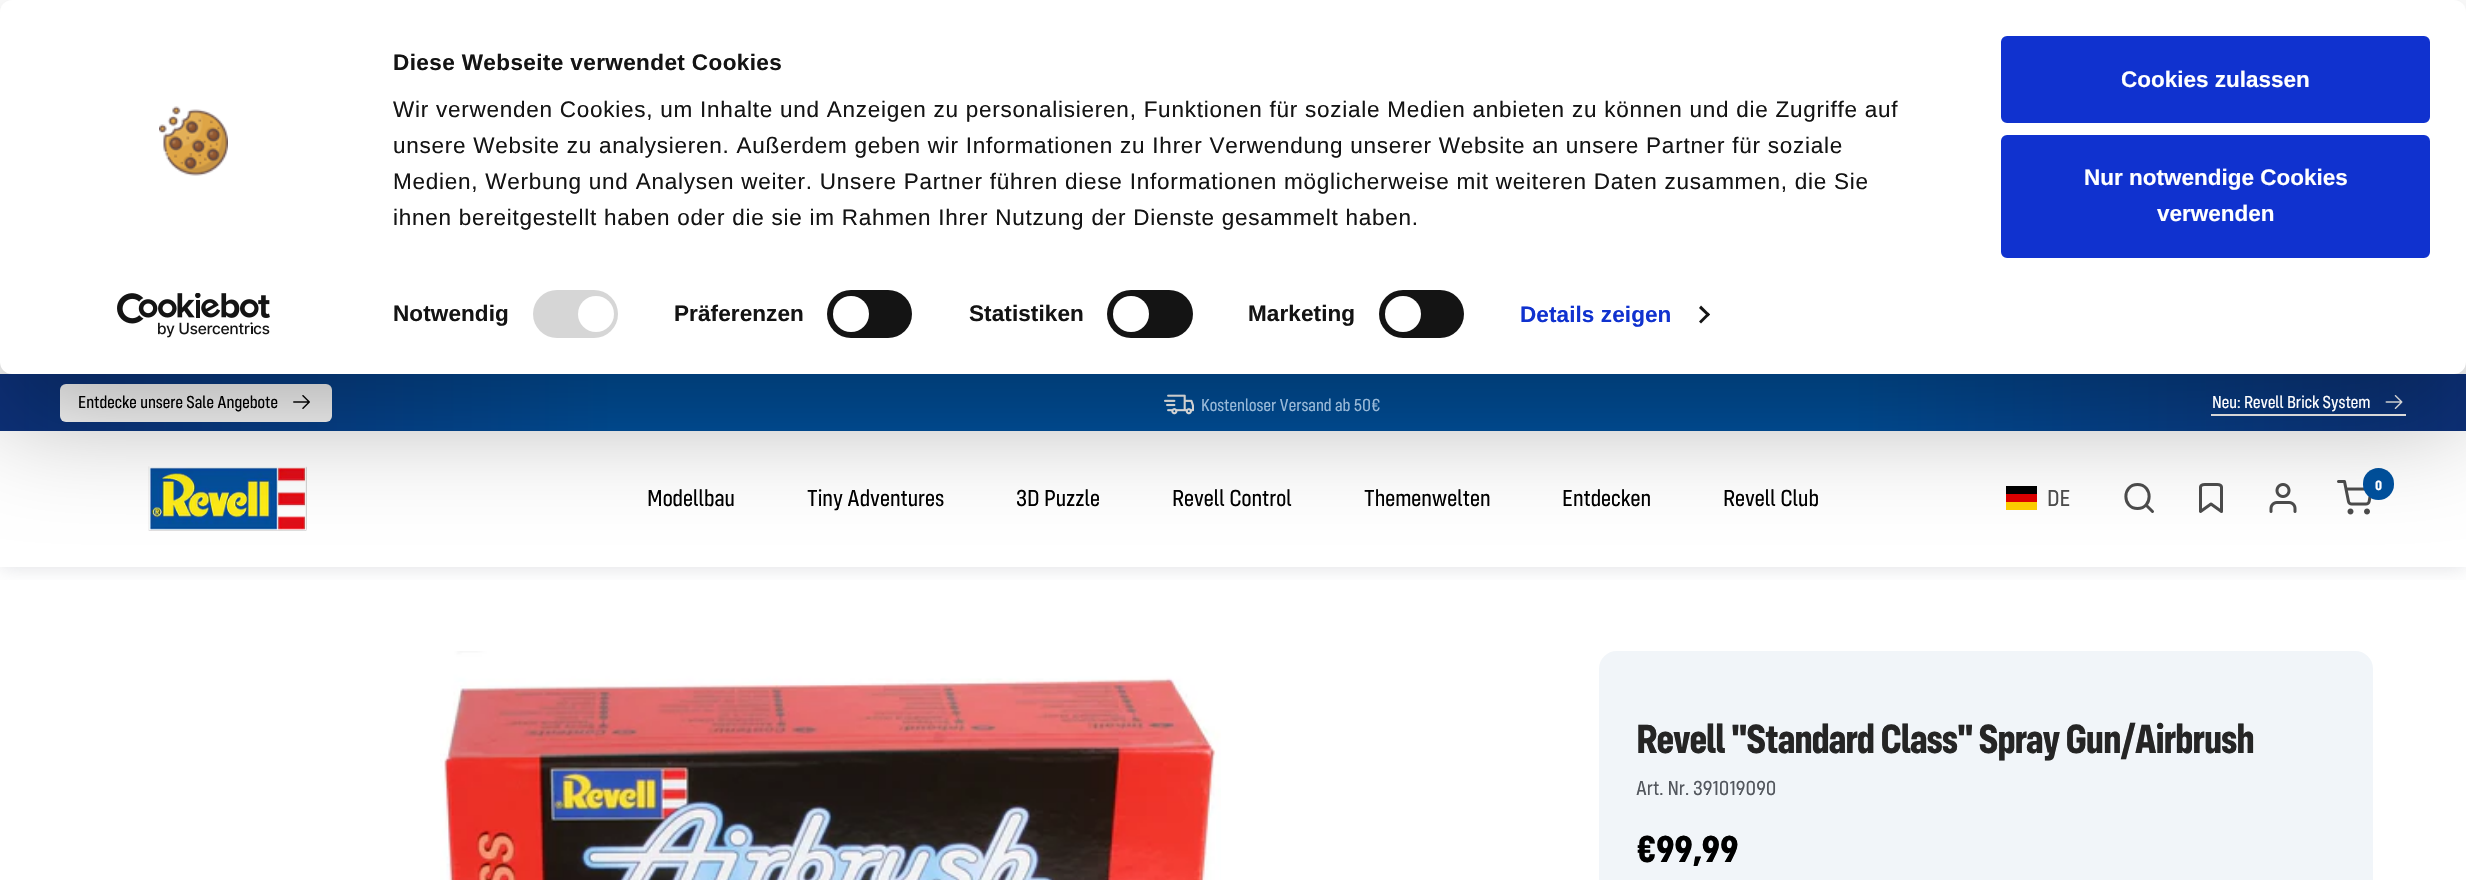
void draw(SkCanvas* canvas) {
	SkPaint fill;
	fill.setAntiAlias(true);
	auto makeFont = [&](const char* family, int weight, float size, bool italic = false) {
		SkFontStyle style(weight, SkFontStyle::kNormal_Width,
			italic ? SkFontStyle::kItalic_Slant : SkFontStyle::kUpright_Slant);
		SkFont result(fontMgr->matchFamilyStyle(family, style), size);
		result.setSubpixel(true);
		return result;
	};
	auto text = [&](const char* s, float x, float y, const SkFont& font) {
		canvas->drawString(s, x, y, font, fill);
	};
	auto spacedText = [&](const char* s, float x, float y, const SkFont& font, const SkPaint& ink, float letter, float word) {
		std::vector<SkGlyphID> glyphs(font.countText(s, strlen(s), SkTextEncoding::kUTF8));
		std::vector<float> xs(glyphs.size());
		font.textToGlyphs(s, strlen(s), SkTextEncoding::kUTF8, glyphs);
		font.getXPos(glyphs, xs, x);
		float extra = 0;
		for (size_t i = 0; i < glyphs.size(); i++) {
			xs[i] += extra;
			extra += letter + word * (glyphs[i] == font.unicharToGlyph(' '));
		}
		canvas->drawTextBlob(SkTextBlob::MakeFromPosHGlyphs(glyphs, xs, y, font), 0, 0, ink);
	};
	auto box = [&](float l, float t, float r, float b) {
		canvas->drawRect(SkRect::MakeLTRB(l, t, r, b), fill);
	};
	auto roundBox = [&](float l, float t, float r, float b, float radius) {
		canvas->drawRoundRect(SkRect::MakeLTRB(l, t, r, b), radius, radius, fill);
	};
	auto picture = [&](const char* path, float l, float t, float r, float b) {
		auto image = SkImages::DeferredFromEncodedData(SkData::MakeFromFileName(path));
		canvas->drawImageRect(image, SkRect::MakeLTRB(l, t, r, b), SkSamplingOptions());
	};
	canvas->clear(0xFFFFFFFF);
	canvas->save();
	canvas->clipRect(SkRect::MakeLTRB(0, 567, 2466, 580));
	fill.setColor(0x3B6B7280);
	fill.setMaskFilter(SkMaskFilter::MakeBlur(kNormal_SkBlurStyle, 9.5f));
	canvas->drawRect(SkRect::MakeLTRB(0, 431, 2466, 567), fill);
	fill.setMaskFilter(nullptr);
	canvas->restore();
	{
		const SkColor colors[] = {0xFF0D317A, 0xFF00519E, 0xFF00519E, 0xFF0D317A};
		const float stops[] = {0, 0.25f, 0.75f, 1};
		const SkPoint ends[] = {{0, 402}, {2466, 402}};
		fill.setShader(SkGradientShader::MakeLinear(ends, colors, stops, 4, SkTileMode::kClamp));
		fill.setAlpha(255);
	}
	box(0, 374, 2466, 431);
	fill.setShader(nullptr);
	fill.setColor(0xFFFFFFFF);
	roundBox(60, 384, 332, 422, 6);
	picture("image2.png", 293, 395, 310, 409);
	picture("image3.png", 1164, 394, 1194, 415);
	box(2211, 414, 2406, 416);
	picture("image4.png", 2385, 395, 2403, 409);
	picture("image5.png", 148, 466, 307, 531);
	fill.setColor(0xFFFFCE00);
	box(2006, 502, 2037, 510);
	fill.setColor(0xFF000000);
	box(2006, 486, 2037, 494);
	fill.setColor(0xFFDD0000);
	box(2006, 494, 2037, 502);
	fill.setStyle(SkPaint::kStroke_Style);
	fill.setStrokeWidth(3);
	fill.setStrokeCap(SkPaint::kRound_Cap);
	fill.setStrokeJoin(SkPaint::kRound_Join);
	fill.setColor(0xFF4C4C4C);
	canvas->drawPath(SkPathBuilder().moveTo(2137.5f, 508.5f).cubicTo(2153, 508.5f, 2153, 484.5f, 2137.5f, 484.5f).cubicTo(2122, 484.5f, 2122, 508.5f, 2137.5f, 508.5f).close().moveTo(2152.5f, 511.5f).lineTo(2146, 505).detach(), fill);
	canvas->drawPath(SkPathBuilder().moveTo(2221.5f, 511.5f).lineTo(2211, 504).lineTo(2200.5f, 511.5f).lineTo(2200.5f, 487).cubicTo(2201, 484, 2204, 484.5f, 2206, 484.5f).lineTo(2216, 484.5f).cubicTo(2218, 484.5f, 2221, 484, 2221.5f, 487).close().detach(), fill);
	picture("image6.png", 2269, 483, 2297, 513);
	picture("image7.png", 2337, 480, 2372, 515);
	fill.setStyle(SkPaint::kFill_Style);
	fill.setColor(0xFF00519E);
	roundBox(2363, 468, 2394, 500, 15.5f);
	fill.setColor(0x4D000000);
	fill.setMaskFilter(SkMaskFilter::MakeBlur(kNormal_SkBlurStyle, 52.5f));
	canvas->drawRoundRect(SkRect::MakeLTRB(0, 45, 2466, 419), 12, 12, fill);
	fill.setMaskFilter(nullptr);
	fill.setColor(0xFFFFFFFF);
	roundBox(0, 0, 2466, 374, 12);
	picture("image0.png", 159, 106, 228, 176);
	picture("image1.png", 117, 293, 270, 338);
	fill.setColor(0xFFD6D6D6);
	roundBox(533, 290, 618, 338, 24);
	fill.setColor(0xFFFFFFFF);
	canvas->drawCircle(596, 314, 18, fill);
	fill.setColor(0xFF141414);
	roundBox(827, 290, 912, 338, 24);
	fill.setColor(0xFFFFFFFF);
	canvas->drawCircle(851, 314, 18, fill);
	fill.setColor(0xFF141414);
	roundBox(1107, 290, 1193, 338, 24);
	fill.setColor(0xFFFFFFFF);
	canvas->drawCircle(1131, 314, 18, fill);
	fill.setColor(0xFF141414);
	roundBox(1379, 290, 1464, 338, 24);
	fill.setColor(0xFFFFFFFF);
	canvas->drawCircle(1403, 314, 18, fill);
	fill.setColor(0xFF141414);
	canvas->drawPath(SkPathBuilder().moveTo(1701, 305.5f).lineTo(1710, 314.5f).lineTo(1708, 316.5f).lineTo(1699, 308).close().detach(), fill);
	canvas->drawPath(SkPathBuilder().moveTo(1708, 312.5f).lineTo(1710, 314.5f).lineTo(1701, 323.5f).lineTo(1699, 321.5f).close().detach(), fill);
	fill.setColor(0xFF1032CF);
	canvas->drawRoundRect(SkRect::MakeLTRB(2002.5f, 37.5f, 2428.5f, 121.5f), 4.5f, 4.5f, fill);
	fill.setStyle(SkPaint::kStroke_Style);
	fill.setStrokeCap(SkPaint::kButt_Cap);
	fill.setStrokeJoin(SkPaint::kMiter_Join);
	canvas->drawRoundRect(SkRect::MakeLTRB(2002.5f, 37.5f, 2428.5f, 121.5f), 4.5f, 4.5f, fill);
	fill.setStyle(SkPaint::kFill_Style);
	canvas->drawRoundRect(SkRect::MakeLTRB(2002.5f, 136.5f, 2428.5f, 256.5f), 4.5f, 4.5f, fill);
	fill.setStyle(SkPaint::kStroke_Style);
	canvas->drawRoundRect(SkRect::MakeLTRB(2002.5f, 136.5f, 2428.5f, 256.5f), 4.5f, 4.5f, fill);
	picture("image8.png", 440, 651, 1221, 880);
	fill.setStyle(SkPaint::kFill_Style);
	fill.setColor(0xFFF1F5F9);
	canvas->drawRoundRect(SkRect::MakeLTRB(1600, 652, 2372, 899), 17, 17, fill);
	fill.setStyle(SkPaint::kStroke_Style);
	fill.setStrokeWidth(2);
	canvas->drawRoundRect(SkRect::MakeLTRB(1600, 652, 2372, 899), 17, 17, fill);
	auto font1 = makeFont("Liberation Sans", 700, 22.5f);
	fill.setStyle(SkPaint::kFill_Style);
	fill.setColor(0xFF141414);
	spacedText("Diese Webseite verwendet Cookies", 393, 70, font1, fill, 0.4f, 0);
	auto font2 = makeFont("Liberation Sans", 400, 22.5f);
	spacedText("Wir verwenden Cookies, um Inhalte und Anzeigen zu personalisieren, Funktionen für soziale Medien anbieten zu können und die Zugriffe auf", 393, 117, font2, fill, 0.75f, 0);
	spacedText("unsere Website zu analysieren. Außerdem geben wir Informationen zu Ihrer Verwendung unserer Website an unsere Partner für soziale", 393, 153, font2, fill, 0.75f, 0);
	spacedText("Medien, Werbung und Analysen weiter. Unsere Partner führen diese Informationen möglicherweise mit weiteren Daten zusammen, die Sie", 393, 189, font2, fill, 0.75f, 0);
	spacedText("ihnen bereitgestellt haben oder die sie im Rahmen Ihrer Nutzung der Dienste gesammelt haben.", 393, 225, font2, fill, 0.75f, 0);
	spacedText("Notwendig", 393, 321, font1, fill, 0.1f, 0);
	spacedText("Präferenzen", 674, 321, font1, fill, 0.1f, 0);
	spacedText("Statistiken", 969, 321, font1, fill, 0.1f, 0);
	spacedText("Marketing", 1248, 321, font1, fill, 0.1f, 0);
	fill.setColor(0xFF1032CF);
	spacedText("Details zeigen", 1520, 322, font1, fill, 0.1f, 0);
	fill.setColor(0xFFFFFFFF);
	text("Cookies zulassen", 2121, 87, font1);
	text("Nur notwendige Cookies", 2084, 185, font1);
	text("verwenden", 2157, 221, font1);
	auto font3 = makeFont("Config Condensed", 400, 18);
	fill.setColor(0xFF000000);
	text("Entdecke unsere Sale Angebote", 78, 408, font3);
	fill.setColor(0xFF99B9D8);
	text("Kostenloser Versand ab 50€", 1201, 411, font3);
	fill.setColor(0xFFFFFFFF);
	text("Neu: Revell Brick System", 2212, 408, font3);
	auto font4 = makeFont("Config Condensed", 400, 24);
	fill.setColor(0xFF000000);
	text("Modellbau", 647, 506, font4);
	text("Tiny Adventures", 807, 506, font4);
	text("3D Puzzle", 1016, 506, font4);
	text("Revell Control", 1172, 506, font4);
	text("Themenwelten", 1364, 506, font4);
	text("Entdecken", 1562, 506, font4);
	text("Revell Club", 1723, 506, font4);
	fill.setColor(0xFF4C4C4C);
	text("DE", 2047, 506, font4);
	auto font5 = makeFont("Config Condensed", 700, 14);
	fill.setColor(0xFFFFFFFF);
	text("0", 2375, 490, font5);
	auto font6 = makeFont("Config Condensed", 700, 42);
	fill.setColor(0xFF252525);
	spacedText("Revell \"Standard Class\" Spray Gun/Airbrush", 1636, 753, font6, fill, -1.2f, 0);
	auto font7 = makeFont("Config Condensed", 400, 21);
	fill.setColor(0xFF53575E);
	text("Art. Nr. 391019090", 1636, 795, font7);
	auto font8 = makeFont("Config Condensed", 700, 39);
	fill.setColor(0xFF000000);
	text("€99,99", 1636, 862, font8);
}
